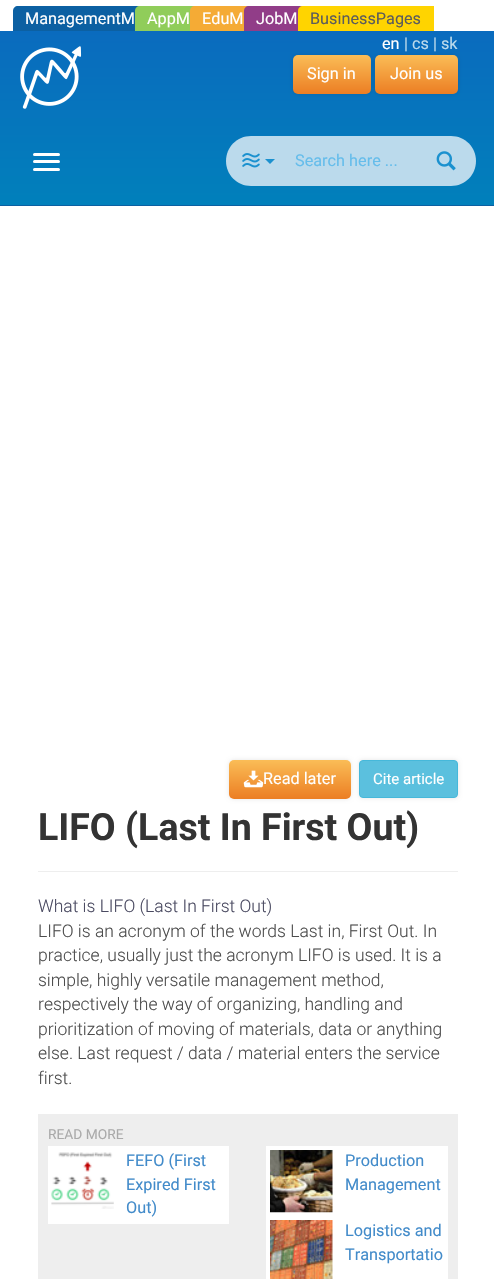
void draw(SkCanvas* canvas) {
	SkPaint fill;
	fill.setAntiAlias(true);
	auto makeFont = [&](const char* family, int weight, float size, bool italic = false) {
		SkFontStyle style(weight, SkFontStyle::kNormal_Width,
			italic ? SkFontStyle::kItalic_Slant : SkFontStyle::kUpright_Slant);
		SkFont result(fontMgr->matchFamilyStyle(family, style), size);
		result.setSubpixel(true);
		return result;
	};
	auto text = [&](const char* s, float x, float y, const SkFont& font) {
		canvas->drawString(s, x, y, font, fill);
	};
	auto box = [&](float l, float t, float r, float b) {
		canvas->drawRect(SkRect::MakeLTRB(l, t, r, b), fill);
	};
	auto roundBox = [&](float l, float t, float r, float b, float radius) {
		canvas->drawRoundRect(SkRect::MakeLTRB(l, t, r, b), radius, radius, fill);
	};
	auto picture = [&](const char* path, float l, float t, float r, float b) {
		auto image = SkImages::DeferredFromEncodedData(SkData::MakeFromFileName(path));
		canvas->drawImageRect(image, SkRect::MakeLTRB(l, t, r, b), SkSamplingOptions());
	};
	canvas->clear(0xFFFFFFFF);
	fill.setColor(0xFF0C60A2);
	canvas->drawPath(SkPathBuilder().moveTo(18, 6).lineTo(178, 6).lineTo(178, 31).lineTo(13, 31).lineTo(13, 11).cubicTo(13, 8, 15, 6, 18, 6).close().detach(), fill);
	fill.setColor(0xFF90CD5A);
	canvas->drawPath(SkPathBuilder().moveTo(140, 6).lineTo(234, 6).lineTo(234, 31).lineTo(135, 31).lineTo(135, 11).cubicTo(135, 8, 137, 6, 140, 6).close().detach(), fill);
	fill.setColor(0xFFF5AB35);
	canvas->drawPath(SkPathBuilder().moveTo(195, 6).lineTo(288, 6).lineTo(288, 31).lineTo(190, 31).lineTo(190, 11).cubicTo(190, 8, 192, 6, 195, 6).close().detach(), fill);
	fill.setColor(0xFF913D88);
	canvas->drawPath(SkPathBuilder().moveTo(249, 6).lineTo(341, 6).lineTo(341, 31).lineTo(244, 31).lineTo(244, 11).cubicTo(244, 8, 246, 6, 249, 6).close().detach(), fill);
	fill.setColor(0xFFFFD400);
	canvas->drawPath(SkPathBuilder().moveTo(303, 6).lineTo(434, 6).lineTo(434, 31).lineTo(298, 31).lineTo(298, 11).cubicTo(298, 8, 300, 6, 303, 6).close().detach(), fill);
	{
		const SkColor colors[] = {0xFF0A6BBE, 0xFF0180BB};
		const float stops[] = {0, 1};
		const SkPoint ends[] = {{248, 31}, {248, 205}};
		fill.setShader(SkGradientShader::MakeLinear(ends, colors, stops, 2, SkTileMode::kClamp));
		fill.setAlpha(255);
	}
	box(0, 31, 494, 205);
	fill.setShader(nullptr);
	fill.setColor(0xFF0C60A2);
	box(0, 205, 494, 206);
	picture("image0.png", 20, 46, 82, 109);
	fill.setColor(0x1A000000);
	fill.setMaskFilter(SkMaskFilter::MakeBlur(kNormal_SkBlurStyle, 2));
	canvas->drawRoundRect(SkRect::MakeLTRB(293, 55, 371, 94), 5, 5, fill);
	fill.setMaskFilter(nullptr);
	{
		const SkColor colors[] = {0xFFFABC56, 0xFFEC7F24};
		const float stops[] = {0.01f, 0.98f};
		const SkPoint ends[] = {{332, 55}, {332, 94}};
		fill.setShader(SkGradientShader::MakeLinear(ends, colors, stops, 2, SkTileMode::kClamp));
		fill.setAlpha(255);
	}
	roundBox(293, 55, 371, 94, 5);
	fill.setShader(nullptr);
	fill.setColor(0x1A000000);
	fill.setMaskFilter(SkMaskFilter::MakeBlur(kNormal_SkBlurStyle, 2));
	canvas->drawRoundRect(SkRect::MakeLTRB(375, 55, 458, 94), 5, 5, fill);
	fill.setMaskFilter(nullptr);
	{
		const SkColor colors[] = {0xFFFABC56, 0xFFEC7F24};
		const float stops[] = {0.01f, 0.98f};
		const SkPoint ends[] = {{416, 55}, {416, 94}};
		fill.setShader(SkGradientShader::MakeLinear(ends, colors, stops, 2, SkTileMode::kClamp));
		fill.setAlpha(255);
	}
	roundBox(375, 55, 458, 94, 5);
	fill.setShader(nullptr);
	fill.setColor(0xFFFFFFFF);
	roundBox(33, 153, 60, 156, 1.5f);
	roundBox(33, 160, 60, 163, 1.5f);
	roundBox(33, 168, 60, 171, 1.5f);
	fill.setColor(0xFFBBDAEC);
	canvas->drawPath(SkPathBuilder().moveTo(251, 136).lineTo(290, 136).lineTo(290, 186).lineTo(251, 186).cubicTo(237, 186, 226, 175, 226, 161).cubicTo(226, 147, 237, 136, 251, 136).close().detach(), fill);
	picture("image1.png", 242, 153, 260, 168);
	fill.setColor(0xFF1B91CF);
	canvas->drawPath(SkPathBuilder().moveTo(265, 159).lineTo(275, 159).lineTo(270, 164).close().detach(), fill);
	fill.setColor(0xFFBBDAEC);
	box(290, 136, 421, 186);
	canvas->drawPath(SkPathBuilder().moveTo(421, 136).lineTo(451, 136).cubicTo(465, 136, 476, 147, 476, 161).cubicTo(476, 175, 465, 186, 451, 186).lineTo(421, 186).close().detach(), fill);
	picture("image2.png", 436, 151, 456, 171);
	canvas->save();
	canvas->clipPath(SkPathBuilder(SkPathFillType::kEvenOdd).moveTo(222, 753).lineTo(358, 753).lineTo(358, 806).lineTo(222, 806).close().moveTo(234, 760).lineTo(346, 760).cubicTo(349, 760, 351, 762, 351, 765).lineTo(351, 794).cubicTo(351, 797, 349, 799, 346, 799).lineTo(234, 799).cubicTo(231, 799, 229, 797, 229, 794).lineTo(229, 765).cubicTo(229, 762, 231, 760, 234, 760).close().detach(), true);
	fill.setColor(0x1A000000);
	fill.setMaskFilter(SkMaskFilter::MakeBlur(kNormal_SkBlurStyle, 2));
	canvas->drawRoundRect(SkRect::MakeLTRB(229, 760, 351, 799), 5, 5, fill);
	fill.setMaskFilter(nullptr);
	canvas->restore();
	{
		const SkColor colors[] = {0xFFFABC56, 0xFFEC7F24};
		const float stops[] = {0.01f, 0.98f};
		const SkPoint ends[] = {{290, 760}, {290, 799}};
		fill.setShader(SkGradientShader::MakeLinear(ends, colors, stops, 2, SkTileMode::kClamp));
		fill.setAlpha(255);
	}
	roundBox(229, 760, 351, 799, 5);
	picture("image3.png", 243, 770, 264, 788);
	fill.setShader(nullptr);
	fill.setColor(0x1A000000);
	fill.setMaskFilter(SkMaskFilter::MakeBlur(kNormal_SkBlurStyle, 2));
	canvas->drawRoundRect(SkRect::MakeLTRB(359, 760, 458, 798), 4, 4, fill);
	fill.setMaskFilter(nullptr);
	fill.setColor(0xFF5BC0DE);
	canvas->drawRoundRect(SkRect::MakeLTRB(359.5f, 760.5f, 457.5f, 797.5f), 3.5f, 3.5f, fill);
	fill.setStyle(SkPaint::kStroke_Style);
	fill.setStrokeWidth(1);
	fill.setColor(0xFF46B8DA);
	canvas->drawRoundRect(SkRect::MakeLTRB(359.5f, 760.5f, 457.5f, 797.5f), 3.5f, 3.5f, fill);
	fill.setStyle(SkPaint::kFill_Style);
	fill.setColor(0xFFEEEEEE);
	box(38, 871, 458, 872);
	box(38, 1114, 458, 1279);
	fill.setColor(0xFFFFFFFF);
	box(48, 1146, 229, 1224);
	picture("image4.png", 51, 1152, 114, 1209);
	box(266, 1146, 448, 1279);
	picture("image5.png", 270, 1150, 333, 1213);
	picture("image6.png", 270, 1220, 333, 1279);
	auto font1 = makeFont("Roboto", 400, 16.25f);
	text("ManagementM", 25, 24, font1);
	text("AppM", 147, 24, font1);
	text("EduM", 202, 24, font1);
	text("JobM", 256, 24, font1);
	fill.setColor(0xFF5C5C5C);
	text("BusinessPages", 310, 24, font1);
	fill.setColor(0xFFFFFFFF);
	text("en", 382, 49, font1);
	fill.setColor(0xFFBBDAEC);
	text("| cs | sk", 404, 49, font1);
	fill.setColor(0xFFFFFFFF);
	text("Sign in", 307, 79, font1);
	text("Join us", 390, 79, font1);
	fill.setColor(0xFF65BDEB);
	text("Search here ...", 295, 166, font1);
	fill.setColor(0xFFFFFFFF);
	text("Read later", 263, 784, font1);
	auto font2 = makeFont("Roboto", 400, 15);
	text("Cite article", 373, 784, font2);
	auto font3 = makeFont("Roboto", 700, 37.5f);
	fill.setColor(0xFF333333);
	text("LIFO (Last In First Out)", 38, 840, font3);
	auto font4 = makeFont("Roboto", 300, 17.5f);
	fill.setColor(0xFF4A4A61);
	text("What is LIFO (Last In First Out)", 38, 912, font4);
	fill.setColor(0xFF4D4D4D);
	text("LIFO is an acronym of the words Last in, First Out. In", 38, 937, font4);
	text("practice, usually just the acronym LIFO is used. It is a", 38, 961, font4);
	text("simple, highly versatile management method,", 38, 986, font4);
	text("respectively the way of organizing, handling and", 38, 1010, font4);
	text("prioritization of moving of materials, data or anything", 38, 1035, font4);
	text("else. Last request / data / material enters the service", 38, 1059, font4);
	text("first.", 38, 1084, font4);
	auto font5 = makeFont("Roboto", 400, 13.75f);
	fill.setColor(0xFFAAAAAA);
	text("READ MORE", 48, 1139, font5);
	fill.setColor(0xFF428BCA);
	text("FEFO (First", 126, 1166, font1);
	text("Expired First", 126, 1190, font1);
	text("Out)", 126, 1213, font1);
	text("Production", 345, 1166, font1);
	text("Management", 345, 1190, font1);
	text("Logistics and", 345, 1236, font1);
	text("Transportatio", 345, 1260, font1);
}
